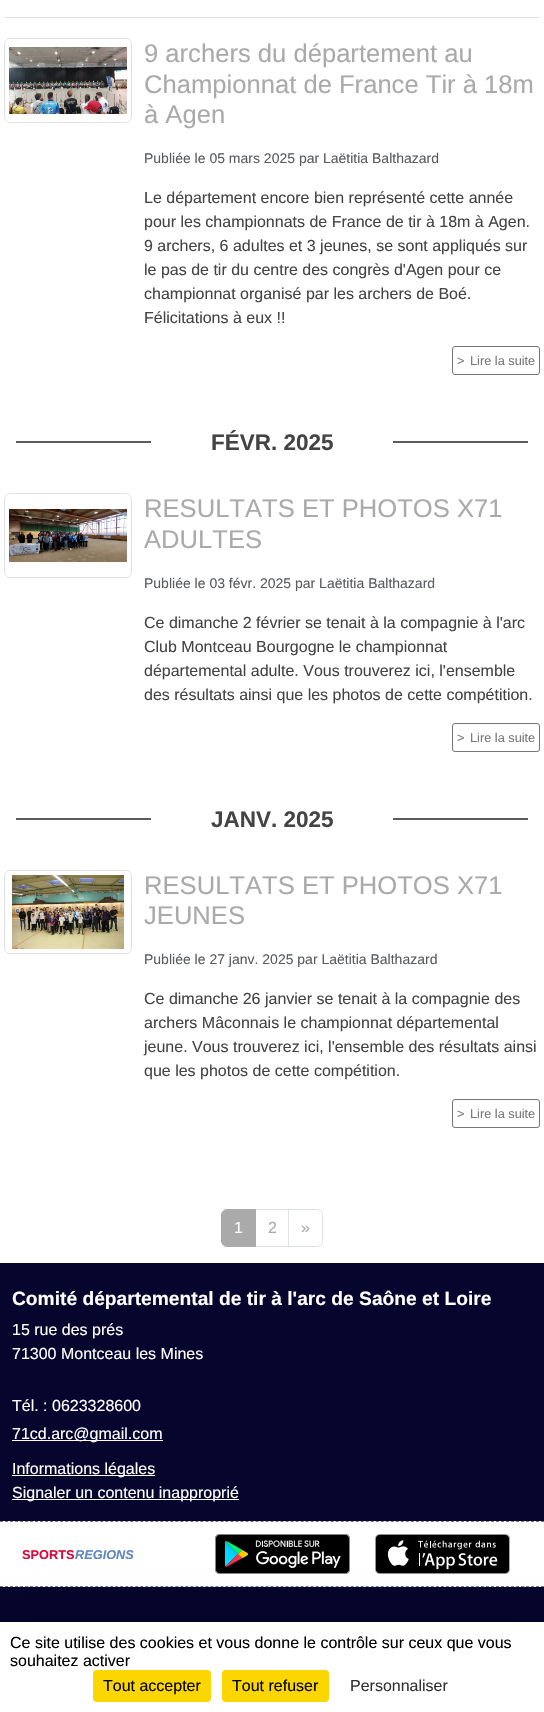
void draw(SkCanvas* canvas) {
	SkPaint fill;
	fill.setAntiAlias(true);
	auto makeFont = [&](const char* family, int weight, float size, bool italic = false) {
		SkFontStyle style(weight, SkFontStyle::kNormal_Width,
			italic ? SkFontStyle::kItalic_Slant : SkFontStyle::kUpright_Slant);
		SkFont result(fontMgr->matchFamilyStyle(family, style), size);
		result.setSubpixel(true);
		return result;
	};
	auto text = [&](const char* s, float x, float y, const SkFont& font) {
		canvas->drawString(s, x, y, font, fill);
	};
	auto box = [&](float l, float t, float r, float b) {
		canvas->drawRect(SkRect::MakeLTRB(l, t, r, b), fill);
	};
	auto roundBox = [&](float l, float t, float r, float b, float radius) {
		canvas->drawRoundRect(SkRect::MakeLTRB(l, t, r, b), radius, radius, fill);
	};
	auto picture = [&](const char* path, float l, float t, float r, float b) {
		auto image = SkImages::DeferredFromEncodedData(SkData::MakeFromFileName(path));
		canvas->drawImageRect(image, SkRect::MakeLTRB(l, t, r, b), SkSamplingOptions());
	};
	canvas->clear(0xFFFFFFFF);
	fill.setColor(0xFFE1E1E1);
	box(4, 17, 540, 18);
	fill.setStyle(SkPaint::kStroke_Style);
	fill.setStrokeWidth(1);
	fill.setColor(0xFFDEE2E6);
	canvas->drawRoundRect(SkRect::MakeLTRB(4.5f, 38.5f, 131.5f, 122.5f), 5.5f, 5.5f, fill);
	picture("image0.png", 9, 47, 127, 115);
	fill.setColor(0xFF777777);
	canvas->drawRoundRect(SkRect::MakeLTRB(452.5f, 346.5f, 539.5f, 374.5f), 2.5f, 2.5f, fill);
	fill.setStyle(SkPaint::kFill_Style);
	fill.setColor(0xFF5B5B5B);
	box(16, 441, 528, 443);
	fill.setColor(0xFFFFFFFF);
	box(151, 441, 393, 443);
	fill.setStyle(SkPaint::kStroke_Style);
	fill.setColor(0xFFDEE2E6);
	canvas->drawRoundRect(SkRect::MakeLTRB(4.5f, 493.5f, 131.5f, 577.5f), 5.5f, 5.5f, fill);
	picture("image1.png", 9, 508, 127, 564);
	fill.setColor(0xFF777777);
	canvas->drawRoundRect(SkRect::MakeLTRB(452.5f, 723.5f, 539.5f, 751.5f), 2.5f, 2.5f, fill);
	fill.setStyle(SkPaint::kFill_Style);
	fill.setColor(0xFF5B5B5B);
	box(16, 818, 528, 820);
	fill.setColor(0xFFFFFFFF);
	box(151, 818, 393, 820);
	fill.setStyle(SkPaint::kStroke_Style);
	fill.setColor(0xFFDEE2E6);
	canvas->drawRoundRect(SkRect::MakeLTRB(4.5f, 870.5f, 131.5f, 953.5f), 5.5f, 5.5f, fill);
	picture("image2.png", 12, 875, 124, 949);
	fill.setColor(0xFF777777);
	canvas->drawRoundRect(SkRect::MakeLTRB(452.5f, 1099.5f, 539.5f, 1127.5f), 2.5f, 2.5f, fill);
	fill.setColor(0xFFDEE2E6);
	canvas->drawRect(SkRect::MakeLTRB(255.5f, 1209.5f, 288.5f, 1246.5f), fill);
	fill.setStyle(SkPaint::kFill_Style);
	fill.setColor(0xFFAAAAAA);
	canvas->drawPath(SkPathBuilder().moveTo(227, 1209.5f).lineTo(255.5f, 1209.5f).lineTo(255.5f, 1246.5f).lineTo(227, 1246.5f).cubicTo(224, 1246.5f, 221.5f, 1244, 221.5f, 1241).lineTo(221.5f, 1215).cubicTo(221.5f, 1212, 224, 1209.5f, 227, 1209.5f).close().detach(), fill);
	fill.setStyle(SkPaint::kStroke_Style);
	canvas->drawPath(SkPathBuilder().moveTo(227, 1209.5f).lineTo(255.5f, 1209.5f).lineTo(255.5f, 1246.5f).lineTo(227, 1246.5f).cubicTo(224, 1246.5f, 221.5f, 1244, 221.5f, 1241).lineTo(221.5f, 1215).cubicTo(221.5f, 1212, 224, 1209.5f, 227, 1209.5f).close().detach(), fill);
	fill.setStyle(SkPaint::kFill_Style);
	fill.setColor(0xFFFFFFFF);
	canvas->drawPath(SkPathBuilder().moveTo(288.5f, 1209.5f).lineTo(317, 1209.5f).cubicTo(320, 1209.5f, 322.5f, 1212, 322.5f, 1215).lineTo(322.5f, 1241).cubicTo(322.5f, 1244, 320, 1246.5f, 317, 1246.5f).lineTo(288.5f, 1246.5f).close().detach(), fill);
	fill.setStyle(SkPaint::kStroke_Style);
	fill.setColor(0xFFDEE2E6);
	canvas->drawPath(SkPathBuilder().moveTo(288.5f, 1209.5f).lineTo(317, 1209.5f).cubicTo(320, 1209.5f, 322.5f, 1212, 322.5f, 1215).lineTo(322.5f, 1241).cubicTo(322.5f, 1244, 320, 1246.5f, 317, 1246.5f).lineTo(288.5f, 1246.5f).close().detach(), fill);
	fill.setStyle(SkPaint::kFill_Style);
	fill.setColor(0xFF05052D);
	box(0, 1263, 544, 1521);
	fill.setColor(0xFFFFFFFF);
	box(12, 1440, 163, 1441);
	box(12, 1475, 155, 1476);
	box(12, 1499, 239, 1500);
	fill.setStyle(SkPaint::kStroke_Style);
	fill.setColor(0xFF777777);
	fill.setPathEffect(SkDashPathEffect::Make({{3, 2.01f}}, 0));
	canvas->drawPath(SkPathBuilder().moveTo(0, 1521.5f).lineTo(544, 1521.5f).detach(), fill);
	fill.setPathEffect(nullptr);
	fill.setPathEffect(SkDashPathEffect::Make({{3, 2.01f}}, 0));
	canvas->drawPath(SkPathBuilder().moveTo(0, 1586.5f).lineTo(544, 1586.5f).detach(), fill);
	fill.setPathEffect(nullptr);
	picture("image3.png", 215, 1534, 350, 1574);
	picture("image4.png", 375, 1534, 510, 1574);
	fill.setStyle(SkPaint::kFill_Style);
	fill.setColor(0xFF05052D);
	box(0, 1587, 544, 1622);
	fill.setColor(0x40000000);
	fill.setMaskFilter(SkMaskFilter::MakeBlur(kNormal_SkBlurStyle, 30));
	canvas->drawRect(SkRect::MakeLTRB(0, 1642, 544, 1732), fill);
	fill.setMaskFilter(nullptr);
	fill.setColor(0xFFFFFFFF);
	box(0, 1622, 544, 1712);
	fill.setColor(0xFFFBD600);
	roundBox(93, 1670, 211, 1702, 4);
	roundBox(222, 1670, 329, 1702, 4);
	auto font1 = makeFont("Liberation Sans", 400, 25.6f);
	fill.setColor(0xFFAAAAAA);
	text("9 archers du département au", 144, 62, font1);
	text("Championnat de France Tir à 18m", 144, 93, font1);
	text("à Agen", 144, 123, font1);
	auto font2 = makeFont("Liberation Sans", 400, 14);
	fill.setColor(0xFF595C5F);
	text("Publiée le 05 mars 2025 par Laëtitia Balthazard", 144, 163, font2);
	auto font3 = makeFont("Liberation Sans", 400, 16);
	fill.setColor(0xFF444444);
	text("Le département encore bien représenté cette année", 144, 203, font3);
	text("pour les championnats de France de tir à 18m à Agen.", 144, 227, font3);
	text("9 archers, 6 adultes et 3 jeunes, se sont appliqués sur", 144, 251, font3);
	text("le pas de tir du centre des congrès d'Agen pour ce", 144, 275, font3);
	text("championnat organisé par les archers de Boé.", 144, 299, font3);
	text("Félicitations à eux !!", 144, 323, font3);
	auto font4 = makeFont("Liberation Sans", 400, 12.75f);
	fill.setColor(0xFF777777);
	text(">", 457, 365, font4);
	text("Lire la suite", 470, 365, font4);
	auto font5 = makeFont("Liberation Sans", 700, 22.5f);
	fill.setColor(0xFF444444);
	text("FÉVR. 2025", 211, 450, font5);
	fill.setColor(0xFFAAAAAA);
	text("RESULTATS ET PHOTOS X71", 144, 517, font1);
	text("ADULTES", 144, 548, font1);
	fill.setColor(0xFF595C5F);
	text("Publiée le 03 févr. 2025 par Laëtitia Balthazard", 144, 588, font2);
	fill.setColor(0xFF444444);
	text("Ce dimanche 2 février se tenait à la compagnie à l'arc", 144, 628, font3);
	text("Club Montceau Bourgogne le championnat", 144, 652, font3);
	text("départemental adulte. Vous trouverez ici, l'ensemble", 144, 676, font3);
	text("des résultats ainsi que les photos de cette compétition.", 144, 700, font3);
	fill.setColor(0xFF777777);
	text(">", 457, 742, font4);
	text("Lire la suite", 470, 742, font4);
	fill.setColor(0xFF444444);
	text("JANV. 2025", 211, 827, font5);
	fill.setColor(0xFFAAAAAA);
	text("RESULTATS ET PHOTOS X71", 144, 894, font1);
	text("JEUNES", 144, 924, font1);
	fill.setColor(0xFF595C5F);
	text("Publiée le 27 janv. 2025 par Laëtitia Balthazard", 144, 964, font2);
	fill.setColor(0xFF444444);
	text("Ce dimanche 26 janvier se tenait à la compagnie des", 144, 1004, font3);
	text("archers Mâconnais le championnat départemental", 144, 1028, font3);
	text("jeune. Vous trouverez ici, l'ensemble des résultats ainsi", 144, 1052, font3);
	text("que les photos de cette compétition.", 144, 1076, font3);
	fill.setColor(0xFF777777);
	text(">", 457, 1118, font4);
	text("Lire la suite", 470, 1118, font4);
	fill.setColor(0xFFFFFFFF);
	text("1", 234, 1233, font3);
	fill.setColor(0xFFAAAAAA);
	text("2", 268, 1233, font3);
	text("»", 301, 1233, font3);
	auto font6 = makeFont("Liberation Sans", 700, 19.2f);
	fill.setColor(0xFFFFFFFF);
	text("Comité départemental de tir à l'arc de Saône et Loire", 12, 1305, font6);
	text("15 rue des prés", 12, 1335, font3);
	text("71300 Montceau les Mines", 12, 1359, font3);
	text("Tél. : 0623328600", 12, 1411, font3);
	text("71cd.arc@gmail.com", 12, 1439, font3);
	text("Informations légales", 12, 1474, font3);
	text("Signaler un contenu inapproprié", 12, 1498, font3);
	auto font7 = makeFont("Liberation Sans", 700, 12.75f);
	fill.setColor(0xFFD60C3E);
	text("SPORTS", 22, 1559, font7);
	auto font8 = makeFont("Liberation Sans", 700, 12.75f, true);
	fill.setColor(0xFF5F88C0);
	text("REGIONS", 75, 1559, font8);
	fill.setColor(0xFF000000);
	text("Ce site utilise des cookies et vous donne le contrôle sur ceux que vous", 10, 1648, font3);
	text("souhaitez activer", 10, 1666, font3);
	text("Tout accepter", 103, 1691, font3);
	text("Tout refuser", 232, 1691, font3);
	fill.setColor(0xFF333333);
	text("Personnaliser", 350, 1691, font3);
}
